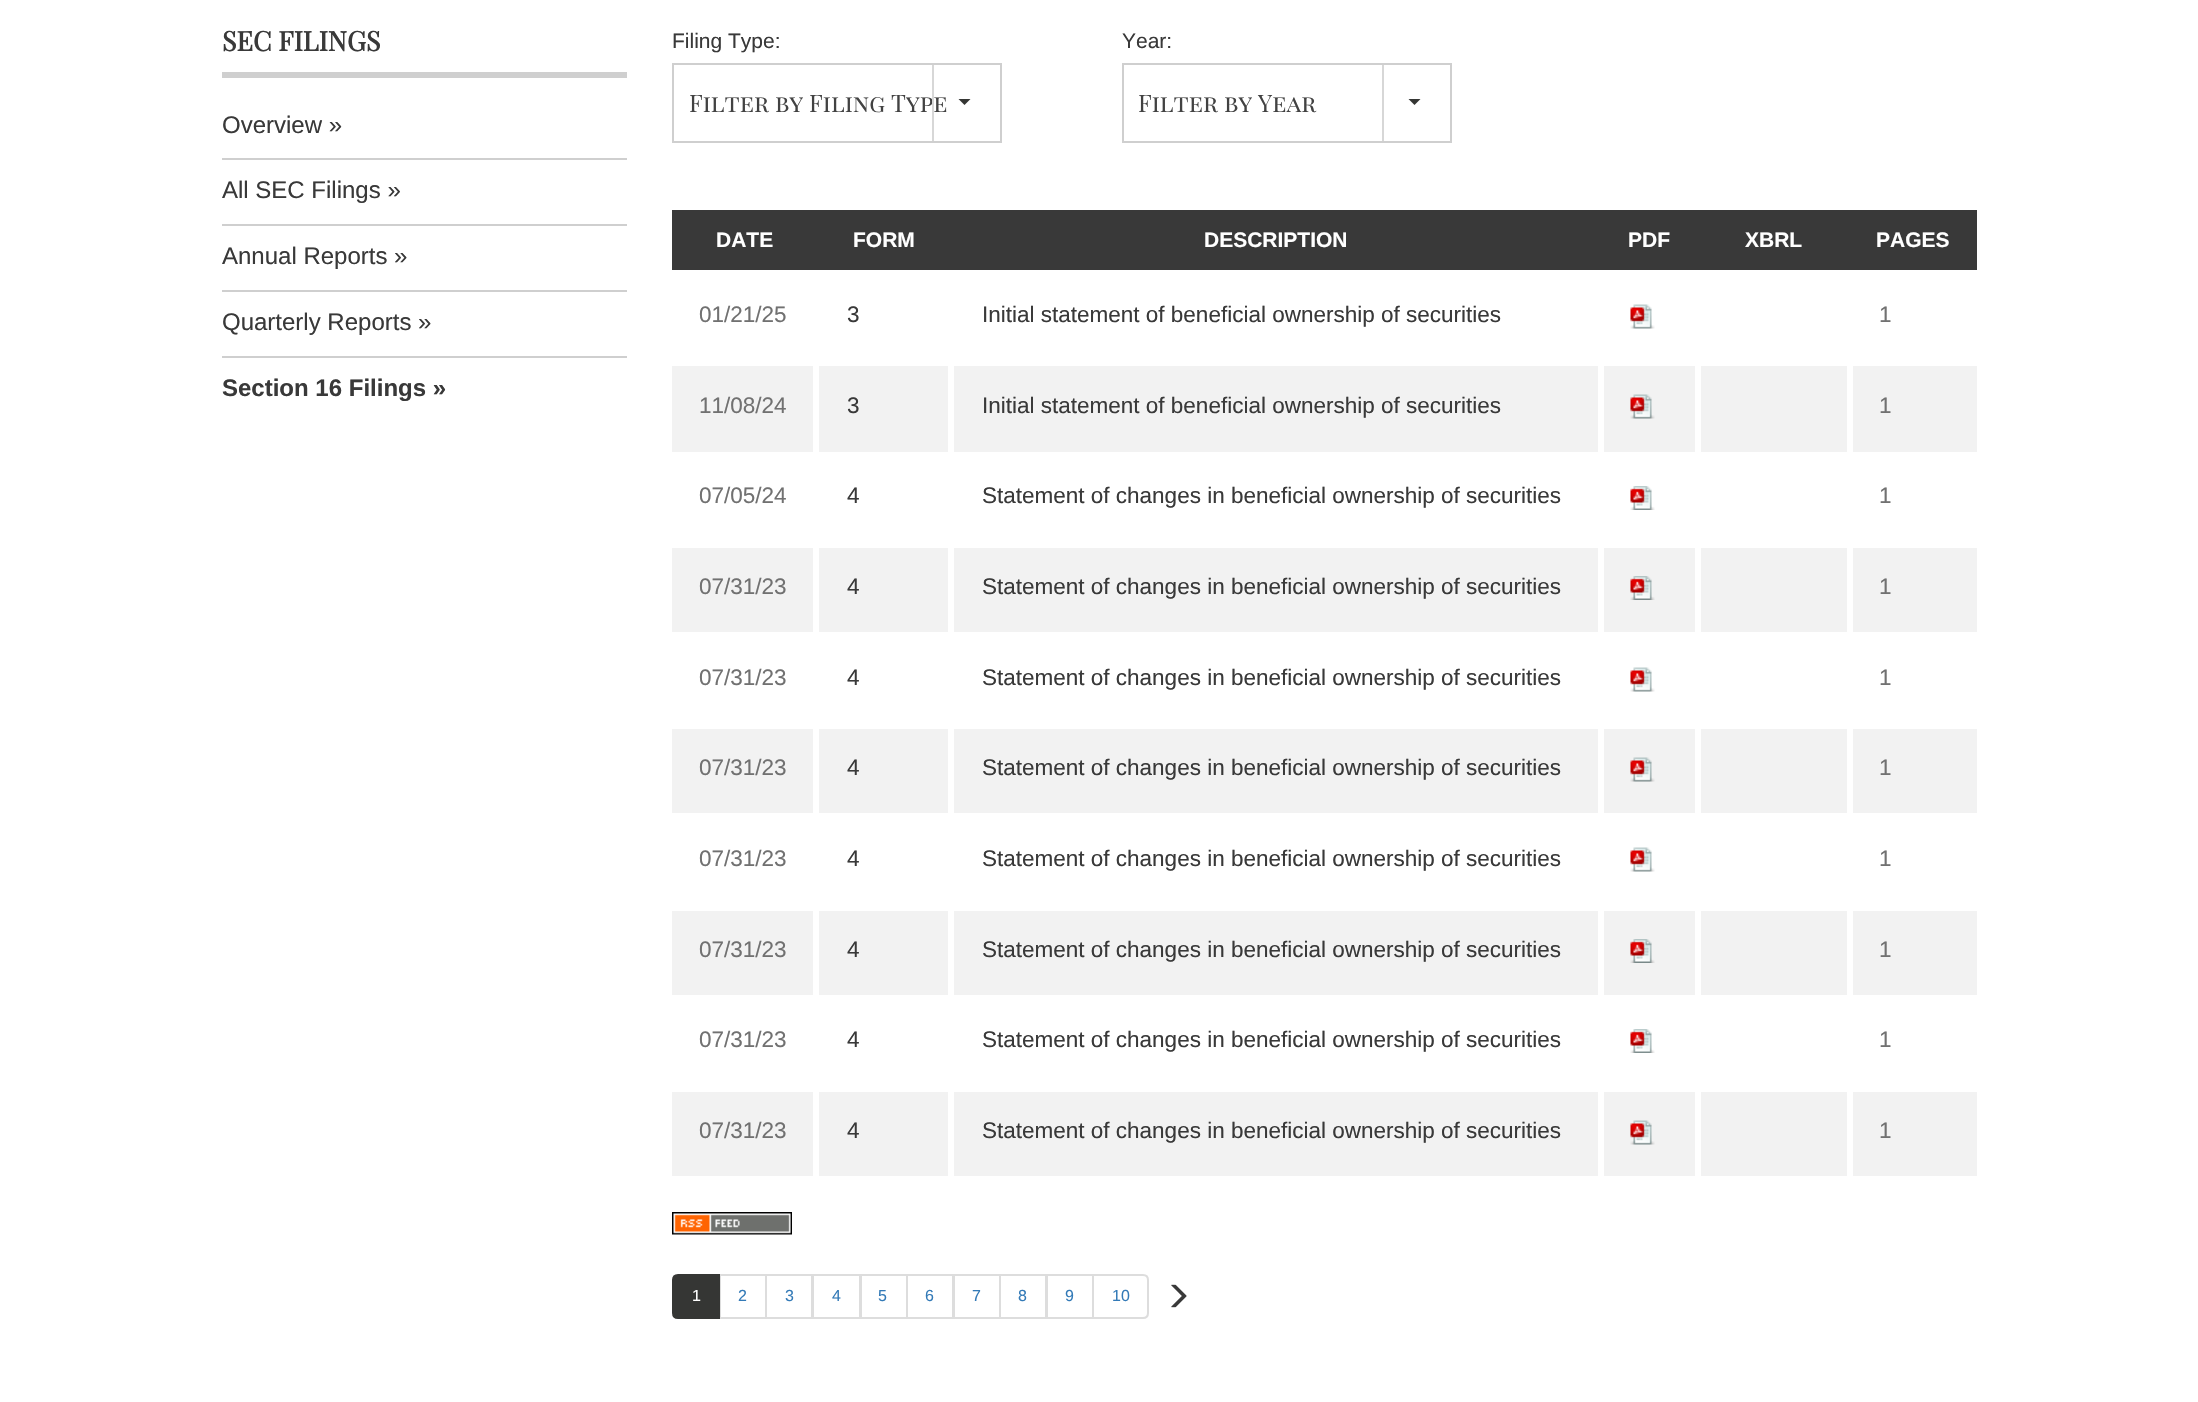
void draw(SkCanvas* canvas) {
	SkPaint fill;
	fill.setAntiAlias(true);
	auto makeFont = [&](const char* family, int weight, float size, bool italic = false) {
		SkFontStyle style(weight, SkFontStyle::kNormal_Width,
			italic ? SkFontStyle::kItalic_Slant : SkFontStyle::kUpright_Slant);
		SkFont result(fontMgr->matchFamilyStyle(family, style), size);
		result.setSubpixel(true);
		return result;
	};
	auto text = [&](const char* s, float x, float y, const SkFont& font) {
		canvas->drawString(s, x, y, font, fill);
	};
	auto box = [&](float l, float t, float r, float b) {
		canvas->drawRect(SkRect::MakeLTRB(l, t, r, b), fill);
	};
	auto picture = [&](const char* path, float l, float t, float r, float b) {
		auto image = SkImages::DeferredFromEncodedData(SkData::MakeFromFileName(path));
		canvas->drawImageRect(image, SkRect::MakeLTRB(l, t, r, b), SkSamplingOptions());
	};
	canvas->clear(0xFFFFFFFF);
	fill.setColor(0xFFCFCFCF);
	box(222, 72, 627, 78);
	box(222, 158, 627, 160);
	box(222, 224, 627, 226);
	box(222, 290, 627, 292);
	box(222, 356, 627, 358);
	fill.setStyle(SkPaint::kStroke_Style);
	fill.setStrokeWidth(2);
	canvas->drawRect(SkRect::MakeLTRB(673, 64, 1001, 142), fill);
	fill.setStyle(SkPaint::kFill_Style);
	fill.setColor(0xFF353634);
	canvas->drawPath(SkPathBuilder().moveTo(958.5f, 99).lineTo(970.5f, 99).lineTo(964.5f, 105).close().detach(), fill);
	fill.setStyle(SkPaint::kStroke_Style);
	fill.setColor(0xFFCFCFCF);
	canvas->drawRect(SkRect::MakeLTRB(1123, 64, 1451, 142), fill);
	fill.setStyle(SkPaint::kFill_Style);
	fill.setColor(0xFFD7D7D7);
	box(1382, 65, 1384, 141);
	fill.setColor(0xFF353634);
	canvas->drawPath(SkPathBuilder().moveTo(1408.5f, 99).lineTo(1420.5f, 99).lineTo(1414.5f, 105).close().detach(), fill);
	fill.setColor(0xFF393939);
	box(672, 210, 1977, 270);
	picture("image0.png", 1630, 304, 1655, 329);
	fill.setColor(0xFFF2F2F2);
	box(672, 366, 813, 452);
	box(819, 366, 948, 452);
	box(954, 366, 1598, 452);
	box(1604, 366, 1695, 452);
	picture("image1.png", 1630, 394, 1655, 419);
	box(1701, 366, 1847, 452);
	box(1853, 366, 1977, 452);
	picture("image2.png", 1630, 486, 1655, 510);
	box(672, 548, 813, 632);
	box(819, 548, 948, 632);
	box(954, 548, 1598, 632);
	box(1604, 548, 1695, 632);
	picture("image3.png", 1630, 576, 1655, 600);
	box(1701, 548, 1847, 632);
	box(1853, 548, 1977, 632);
	picture("image0.png", 1630, 667, 1655, 692);
	box(672, 729, 813, 813);
	box(819, 729, 948, 813);
	box(954, 729, 1598, 813);
	box(1604, 729, 1695, 813);
	picture("image1.png", 1630, 757, 1655, 782);
	box(1701, 729, 1847, 813);
	box(1853, 729, 1977, 813);
	picture("image0.png", 1630, 847, 1655, 872);
	box(672, 911, 813, 995);
	box(819, 911, 948, 995);
	box(954, 911, 1598, 995);
	box(1604, 911, 1695, 995);
	picture("image3.png", 1630, 939, 1655, 963);
	box(1701, 911, 1847, 995);
	box(1853, 911, 1977, 995);
	picture("image2.png", 1630, 1029, 1655, 1053);
	box(672, 1092, 813, 1176);
	box(819, 1092, 948, 1176);
	box(954, 1092, 1598, 1176);
	box(1604, 1092, 1695, 1176);
	picture("image1.png", 1630, 1120, 1655, 1145);
	box(1701, 1092, 1847, 1176);
	box(1853, 1092, 1977, 1176);
	picture("image4.png", 672, 1212, 792, 1235);
	fill.setStyle(SkPaint::kStroke_Style);
	fill.setColor(0xFFDDDDDD);
	canvas->drawRect(SkRect::MakeLTRB(720, 1275, 766, 1318), fill);
	fill.setStyle(SkPaint::kFill_Style);
	fill.setColor(0xFF353634);
	canvas->drawPath(SkPathBuilder().moveTo(678, 1275).lineTo(719, 1275).lineTo(719, 1318).lineTo(678, 1318).cubicTo(675, 1318, 673, 1316, 673, 1313).lineTo(673, 1280).cubicTo(673, 1277, 675, 1275, 678, 1275).close().detach(), fill);
	fill.setStyle(SkPaint::kStroke_Style);
	canvas->drawPath(SkPathBuilder().moveTo(678, 1275).lineTo(719, 1275).lineTo(719, 1318).lineTo(678, 1318).cubicTo(675, 1318, 673, 1316, 673, 1313).lineTo(673, 1280).cubicTo(673, 1277, 675, 1275, 678, 1275).close().detach(), fill);
	fill.setColor(0xFFDDDDDD);
	canvas->drawRect(SkRect::MakeLTRB(766, 1275, 812, 1318), fill);
	canvas->drawRect(SkRect::MakeLTRB(813, 1275, 860, 1318), fill);
	canvas->drawRect(SkRect::MakeLTRB(861, 1275, 907, 1318), fill);
	canvas->drawRect(SkRect::MakeLTRB(907, 1275, 953, 1318), fill);
	canvas->drawRect(SkRect::MakeLTRB(954, 1275, 1000, 1318), fill);
	canvas->drawRect(SkRect::MakeLTRB(1000, 1275, 1046, 1318), fill);
	canvas->drawRect(SkRect::MakeLTRB(1047, 1275, 1093, 1318), fill);
	fill.setStyle(SkPaint::kFill_Style);
	fill.setColor(0xFFFFFFFF);
	canvas->drawPath(SkPathBuilder().moveTo(1093, 1275).lineTo(1143, 1275).cubicTo(1146, 1275, 1148, 1277, 1148, 1280).lineTo(1148, 1313).cubicTo(1148, 1316, 1146, 1318, 1143, 1318).lineTo(1093, 1318).close().detach(), fill);
	fill.setStyle(SkPaint::kStroke_Style);
	fill.setColor(0xFFDDDDDD);
	canvas->drawPath(SkPathBuilder().moveTo(1093, 1275).lineTo(1143, 1275).cubicTo(1146, 1275, 1148, 1277, 1148, 1280).lineTo(1148, 1313).cubicTo(1148, 1316, 1146, 1318, 1143, 1318).lineTo(1093, 1318).close().detach(), fill);
	picture("image5.png", 1171, 1284, 1187, 1308);
	auto font1 = makeFont("Playfair Display SC", 700, 27);
	fill.setStyle(SkPaint::kFill_Style);
	fill.setColor(0xFF393939);
	text("SEC FILINGS", 222, 51, font1);
	auto font2 = makeFont("Liberation Sans", 400, 24);
	text("Overview »", 222, 133, font2);
	text("All SEC Filings »", 222, 198, font2);
	text("Annual Reports »", 222, 264, font2);
	text("Quarterly Reports »", 222, 330, font2);
	auto font3 = makeFont("Liberation Sans", 700, 24);
	text("Section 16 Filings »", 222, 396, font3);
	auto font4 = makeFont("Liberation Sans", 400, 21);
	text("Filing Type:", 672, 48, font4);
	auto font5 = makeFont("Playfair Display SC", 400, 24);
	fill.setColor(0xFF424242);
	text("Filter by Filing Type", 689, 112, font5);
	fill.setColor(0xFFD7D7D7);
	box(932, 65, 934, 141);
	fill.setColor(0xFF393939);
	text("Year:", 1122, 48, font4);
	fill.setColor(0xFF424242);
	text("Filter by Year", 1138, 112, font5);
	auto font6 = makeFont("Liberation Sans", 700, 21);
	fill.setColor(0xFFFFFFFF);
	text("DATE", 716, 247, font6);
	text("FORM", 853, 247, font6);
	text("DESCRIPTION", 1204, 247, font6);
	text("PDF", 1628, 247, font6);
	text("XBRL", 1745, 247, font6);
	text("PAGES", 1876, 247, font6);
	auto font7 = makeFont("Liberation Sans", 400, 22.5f);
	fill.setColor(0xFF717171);
	text("01/21/25", 699, 322, font7);
	fill.setColor(0xFF393939);
	text("3", 847, 322, font7);
	text("Initial statement of beneficial ownership of securities", 982, 322, font7);
	fill.setColor(0xFF717171);
	text("1", 1879, 322, font7);
	text("11/08/24", 699, 413, font7);
	fill.setColor(0xFF393939);
	text("3", 847, 413, font7);
	text("Initial statement of beneficial ownership of securities", 982, 413, font7);
	fill.setColor(0xFF717171);
	text("1", 1879, 413, font7);
	text("07/05/24", 699, 503, font7);
	fill.setColor(0xFF393939);
	text("4", 847, 503, font7);
	text("Statement of changes in beneficial ownership of securities", 982, 503, font7);
	fill.setColor(0xFF717171);
	text("1", 1879, 503, font7);
	text("07/31/23", 699, 594, font7);
	fill.setColor(0xFF393939);
	text("4", 847, 594, font7);
	text("Statement of changes in beneficial ownership of securities", 982, 594, font7);
	fill.setColor(0xFF717171);
	text("1", 1879, 594, font7);
	text("07/31/23", 699, 685, font7);
	fill.setColor(0xFF393939);
	text("4", 847, 685, font7);
	text("Statement of changes in beneficial ownership of securities", 982, 685, font7);
	fill.setColor(0xFF717171);
	text("1", 1879, 685, font7);
	text("07/31/23", 699, 775, font7);
	fill.setColor(0xFF393939);
	text("4", 847, 775, font7);
	text("Statement of changes in beneficial ownership of securities", 982, 775, font7);
	fill.setColor(0xFF717171);
	text("1", 1879, 775, font7);
	text("07/31/23", 699, 866, font7);
	fill.setColor(0xFF393939);
	text("4", 847, 866, font7);
	text("Statement of changes in beneficial ownership of securities", 982, 866, font7);
	fill.setColor(0xFF717171);
	text("1", 1879, 866, font7);
	text("07/31/23", 699, 957, font7);
	fill.setColor(0xFF393939);
	text("4", 847, 957, font7);
	text("Statement of changes in beneficial ownership of securities", 982, 957, font7);
	fill.setColor(0xFF717171);
	text("1", 1879, 957, font7);
	text("07/31/23", 699, 1047, font7);
	fill.setColor(0xFF393939);
	text("4", 847, 1047, font7);
	text("Statement of changes in beneficial ownership of securities", 982, 1047, font7);
	fill.setColor(0xFF717171);
	text("1", 1879, 1047, font7);
	text("07/31/23", 699, 1138, font7);
	fill.setColor(0xFF393939);
	text("4", 847, 1138, font7);
	text("Statement of changes in beneficial ownership of securities", 982, 1138, font7);
	fill.setColor(0xFF717171);
	text("1", 1879, 1138, font7);
	auto font8 = makeFont("Liberation Sans", 400, 16);
	fill.setColor(0xFFFFFFFF);
	text("1", 692, 1301, font8);
	fill.setColor(0xFF337AB7);
	text("2", 738, 1301, font8);
	text("3", 785, 1301, font8);
	text("4", 832, 1301, font8);
	text("5", 878, 1301, font8);
	text("6", 925, 1301, font8);
	text("7", 972, 1301, font8);
	text("8", 1018, 1301, font8);
	text("9", 1065, 1301, font8);
	text("10", 1112, 1301, font8);
}
